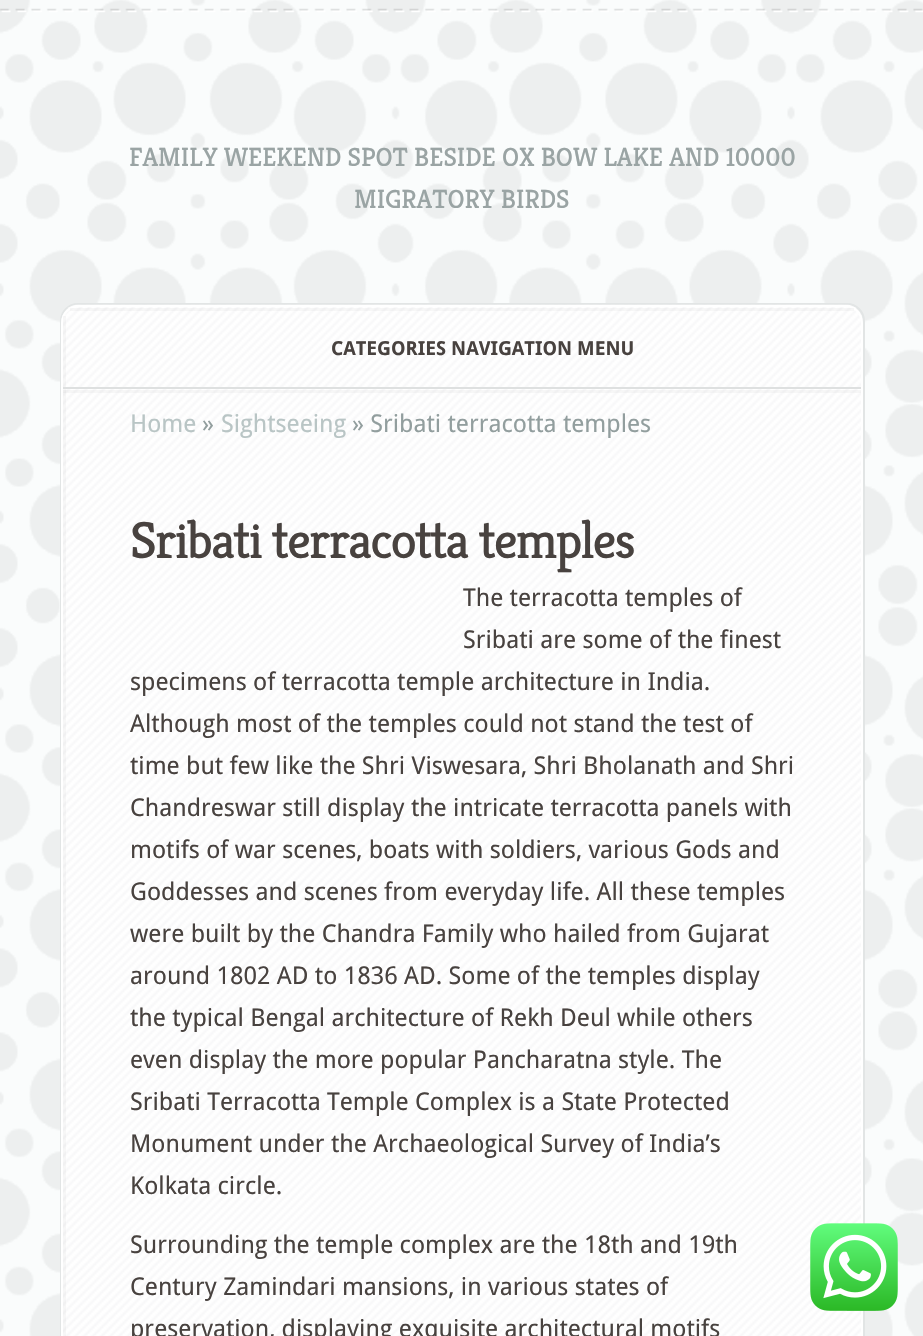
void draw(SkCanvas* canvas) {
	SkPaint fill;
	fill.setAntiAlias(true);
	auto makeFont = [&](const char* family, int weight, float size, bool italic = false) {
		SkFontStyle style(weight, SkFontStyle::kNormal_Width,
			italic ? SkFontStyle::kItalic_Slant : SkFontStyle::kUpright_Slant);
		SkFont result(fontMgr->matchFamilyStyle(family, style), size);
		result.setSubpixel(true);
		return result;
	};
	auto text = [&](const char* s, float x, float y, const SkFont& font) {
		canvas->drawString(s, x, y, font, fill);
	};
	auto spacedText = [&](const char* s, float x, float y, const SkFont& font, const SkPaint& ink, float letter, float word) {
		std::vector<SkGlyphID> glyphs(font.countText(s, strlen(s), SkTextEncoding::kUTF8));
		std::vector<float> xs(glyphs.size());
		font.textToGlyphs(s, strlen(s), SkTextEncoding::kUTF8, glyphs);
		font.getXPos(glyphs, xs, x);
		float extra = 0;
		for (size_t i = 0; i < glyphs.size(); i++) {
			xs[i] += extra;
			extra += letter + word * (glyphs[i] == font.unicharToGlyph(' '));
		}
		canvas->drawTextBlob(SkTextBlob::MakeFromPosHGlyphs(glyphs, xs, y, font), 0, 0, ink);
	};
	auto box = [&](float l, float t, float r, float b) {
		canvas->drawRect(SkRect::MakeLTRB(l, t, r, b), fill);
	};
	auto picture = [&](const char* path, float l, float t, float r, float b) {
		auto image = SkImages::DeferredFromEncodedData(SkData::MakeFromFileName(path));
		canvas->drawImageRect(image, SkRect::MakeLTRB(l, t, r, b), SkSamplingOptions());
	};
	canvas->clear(0xFFFAFCFC);
	picture("image0.png", 0, 0, 923, 1336);
	picture("image1.png", 0, 8, 923, 13);
	fill.setStyle(SkPaint::kStroke_Style);
	fill.setStrokeWidth(2);
	fill.setColor(0xFFE2E5E5);
	canvas->drawRoundRect(SkRect::MakeLTRB(61, 304, 864, 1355), 17, 17, fill);
	picture("image2.png", 61, 304, 862, 1336);
	fill.setColor(0xFFFFFFFF);
	canvas->drawRoundRect(SkRect::MakeLTRB(62, 306, 862, 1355), 17, 17, fill);
	fill.setStyle(SkPaint::kFill_Style);
	fill.setColor(0x08000000);
	box(63, 316, 66, 1336);
	box(70, 308, 854, 311);
	box(63, 390, 861, 393);
	fill.setColor(0xFFDEE0E0);
	box(63, 387, 861, 389);
	picture("image3.png", 810, 1223, 898, 1311);
	auto font1 = makeFont("Kreon", 400, 26.25f);
	fill.setColor(0xFF9AA4A4);
	text("FAMILY WEEKEND SPOT BESIDE OX BOW LAKE AND 10000", 129, 166, font1);
	text("MIGRATORY BIRDS", 354, 208, font1);
	auto font2 = makeFont("Droid Sans", 700, 19.25f);
	fill.setColor(0xFF48423F);
	text("CATEGORIES NAVIGATION MENU", 331, 355, font2);
	auto font3 = makeFont("Droid Sans", 400, 24.5f);
	fill.setColor(0xFFB9C5C5);
	text("Home", 130, 432, font3);
	fill.setColor(0xFF929E9E);
	text("»", 202, 432, font3);
	fill.setColor(0xFFB9C5C5);
	text("Sightseeing", 221, 432, font3);
	fill.setColor(0xFF929E9E);
	text("» Sribati terracotta temples", 352, 432, font3);
	auto font4 = makeFont("Kreon", 400, 52.5f);
	fill.setColor(0xFF48423F);
	spacedText("Sribati terracotta temples", 130, 558, font4, fill, -1.75f, 0);
	text("The terracotta temples of", 463, 606, font3);
	text("Sribati are some of the finest", 463, 648, font3);
	text("specimens of terracotta temple architecture in India.", 130, 690, font3);
	text("Although most of the temples could not stand the test of", 130, 732, font3);
	text("time but few like the Shri Viswesara, Shri Bholanath and Shri", 130, 774, font3);
	text("Chandreswar still display the intricate terracotta panels with", 130, 816, font3);
	text("motifs of war scenes, boats with soldiers, various Gods and", 130, 858, font3);
	text("Goddesses and scenes from everyday life. All these temples", 130, 900, font3);
	text("were built by the Chandra Family who hailed from Gujarat", 130, 942, font3);
	text("around 1802 AD to 1836 AD. Some of the temples display", 130, 984, font3);
	text("the typical Bengal architecture of Rekh Deul while others", 130, 1026, font3);
	text("even display the more popular Pancharatna style. The", 130, 1068, font3);
	text("Sribati Terracotta Temple Complex is a State Protected", 130, 1110, font3);
	text("Monument under the Archaeological Survey of India’s", 130, 1152, font3);
	text("Kolkata circle.", 130, 1194, font3);
	text("Surrounding the temple complex are the 18th and 19th", 130, 1253, font3);
	text("Century Zamindari mansions, in various states of", 130, 1295, font3);
	text("preservation, displaying exquisite architectural motifs", 130, 1337, font3);
}
